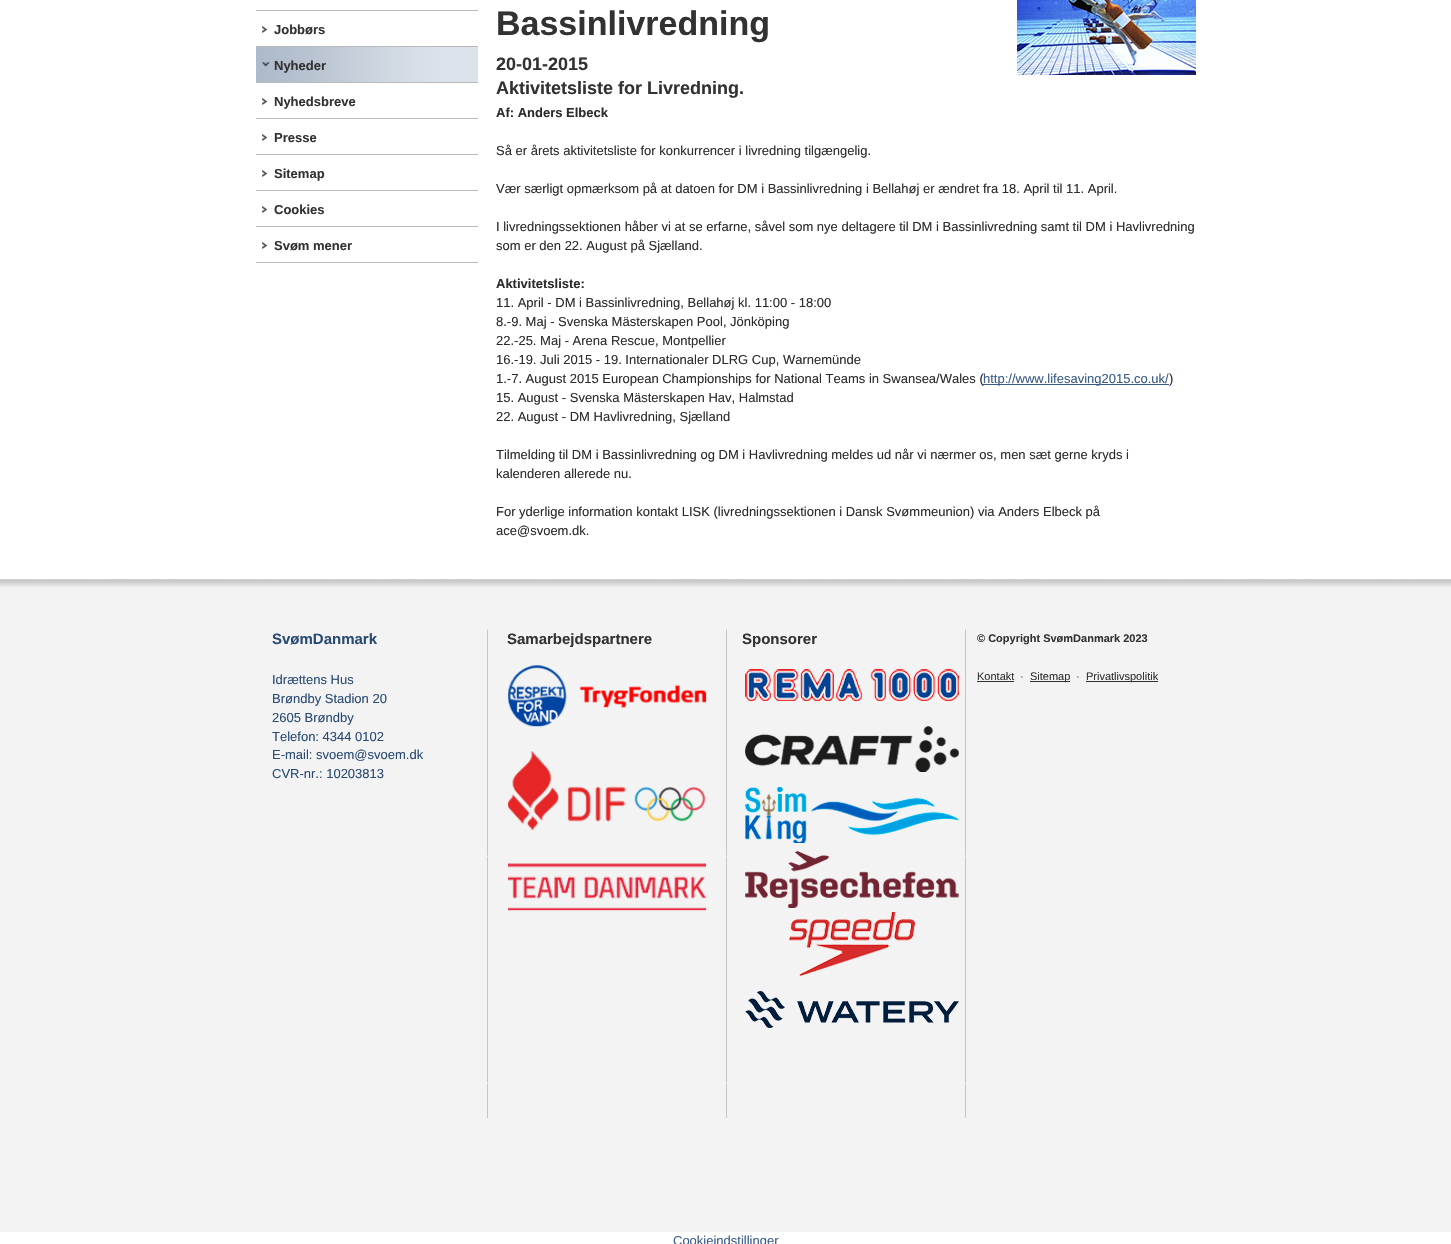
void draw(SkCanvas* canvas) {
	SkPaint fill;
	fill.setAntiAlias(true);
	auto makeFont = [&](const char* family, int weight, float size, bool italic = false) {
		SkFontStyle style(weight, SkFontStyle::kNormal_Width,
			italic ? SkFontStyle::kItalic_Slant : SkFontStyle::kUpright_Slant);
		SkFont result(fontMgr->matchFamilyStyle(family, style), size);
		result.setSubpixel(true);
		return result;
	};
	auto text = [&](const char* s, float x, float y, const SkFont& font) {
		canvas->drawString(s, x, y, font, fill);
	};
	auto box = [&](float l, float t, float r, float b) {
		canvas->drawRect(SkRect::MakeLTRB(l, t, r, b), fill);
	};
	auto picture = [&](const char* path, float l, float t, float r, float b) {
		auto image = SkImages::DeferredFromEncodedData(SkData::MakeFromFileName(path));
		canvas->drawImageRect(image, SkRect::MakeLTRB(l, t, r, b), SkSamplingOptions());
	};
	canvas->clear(0xFFFFFFFF);
	fill.setColor(0xFFB9B9B9);
	box(256, 10, 478, 11);
	box(256, 46, 478, 47);
	picture("image0.png", 262, 26, 267, 33);
	picture("image1.png", 256, 47, 478, 82);
	picture("image2.png", 262, 62, 270, 67);
	box(256, 82, 478, 83);
	box(256, 118, 478, 119);
	picture("image0.png", 262, 98, 267, 105);
	box(256, 154, 478, 155);
	picture("image0.png", 262, 134, 267, 141);
	box(256, 190, 478, 191);
	picture("image0.png", 262, 170, 267, 177);
	box(256, 226, 478, 227);
	picture("image0.png", 262, 206, 267, 213);
	box(256, 262, 478, 263);
	picture("image0.png", 262, 242, 267, 249);
	picture("image3.png", 1017, 0, 1196, 75);
	picture("image4.png", 0, 579, 1451, 609);
	fill.setColor(0xFFF3F3F3);
	box(0, 609, 1451, 1232);
	picture("image5.png", 487, 629, 966, 1118);
	picture("image6.png", 508, 665, 707, 911);
	picture("image7.png", 742, 668, 961, 1028);
	fill.setColor(0xFF313131);
	box(977, 681, 1014, 682);
	box(1030, 681, 1070, 682);
	box(1086, 681, 1158, 682);
	auto font1 = makeFont("Liberation Sans", 700, 13);
	fill.setColor(0xFF323232);
	text("Jobbørs", 274, 34, font1);
	text("Nyheder", 274, 70, font1);
	text("Nyhedsbreve", 274, 106, font1);
	text("Presse", 274, 142, font1);
	text("Sitemap", 274, 178, font1);
	text("Cookies", 274, 214, font1);
	text("Svøm mener", 274, 250, font1);
	auto font2 = makeFont("Liberation Sans", 700, 34);
	text("Bassinlivredning", 496, 35, font2);
	auto font3 = makeFont("Liberation Sans", 700, 18);
	text("20-01-2015", 496, 70, font3);
	text("Aktivitetsliste for Livredning.", 496, 94, font3);
	fill.setColor(0xFF2C2C2C);
	text("Af: Anders Elbeck", 496, 117, font1);
	auto font4 = makeFont("Liberation Sans", 400, 13);
	text("Så er årets aktivitetsliste for konkurrencer i livredning tilgængelig.", 496, 155, font4);
	text("Vær særligt opmærksom på at datoen for DM i Bassinlivredning i Bellahøj er ændret fra 18. April til 11. April.", 496, 193, font4);
	text("I livredningssektionen håber vi at se erfarne, såvel som nye deltagere til DM i Bassinlivredning samt til DM i Havlivredning", 496, 231, font4);
	text("som er den 22. August på Sjælland.", 496, 250, font4);
	text("Aktivitetsliste:", 496, 288, font1);
	text("11. April - DM i Bassinlivredning, Bellahøj kl. 11:00 - 18:00", 496, 307, font4);
	text("8.-9. Maj - Svenska Mästerskapen Pool, Jönköping", 496, 326, font4);
	text("22.-25. Maj - Arena Rescue, Montpellier", 496, 345, font4);
	text("16.-19. Juli 2015 - 19. Internationaler DLRG Cup, Warnemünde", 496, 364, font4);
	text("1.-7. August 2015 European Championships for National Teams in Swansea/Wales (", 496, 383, font4);
	fill.setColor(0xFF3B5C88);
	box(983, 384, 1169, 385);
	text("http://www.lifesaving2015.co.uk/", 983, 383, font4);
	fill.setColor(0xFF2C2C2C);
	text(")", 1169, 383, font4);
	text("15. August - Svenska Mästerskapen Hav, Halmstad", 496, 402, font4);
	text("22. August - DM Havlivredning, Sjælland", 496, 421, font4);
	text("Tilmelding til DM i Bassinlivredning og DM i Havlivredning meldes ud når vi nærmer os, men sæt gerne kryds i", 496, 459, font4);
	text("kalenderen allerede nu.", 496, 478, font4);
	text("For yderlige information kontakt LISK (livredningssektionen i Dansk Svømmeunion) via Anders Elbeck på", 496, 516, font4);
	text("ace@svoem.dk.", 496, 535, font4);
	auto font5 = makeFont("Liberation Sans", 700, 15);
	fill.setColor(0xFF294A73);
	text("SvømDanmark", 272, 644, font5);
	text("Idrættens Hus", 272, 684, font4);
	text("Brøndby Stadion 20", 272, 703, font4);
	text("2605 Brøndby", 272, 722, font4);
	text("Telefon: 4344 0102", 272, 741, font4);
	text("E-mail: svoem@svoem.dk", 272, 759, font4);
	text("CVR-nr.: 10203813", 272, 778, font4);
	fill.setColor(0xFF323232);
	text("Samarbejdspartnere", 507, 644, font5);
	text("Sponsorer", 742, 644, font5);
	auto font6 = makeFont("Liberation Sans", 700, 11);
	text("© Copyright SvømDanmark 2023", 977, 642, font6);
	auto font7 = makeFont("Liberation Sans", 400, 11);
	text("Kontakt", 977, 680, font7);
	text("·", 1020, 680, font7);
	text("Sitemap", 1030, 680, font7);
	text("·", 1076, 680, font7);
	text("Privatlivspolitik", 1086, 680, font7);
	fill.setColor(0xFF3B5C88);
	text("Cookieindstillinger", 673, 1245, font4);
}
